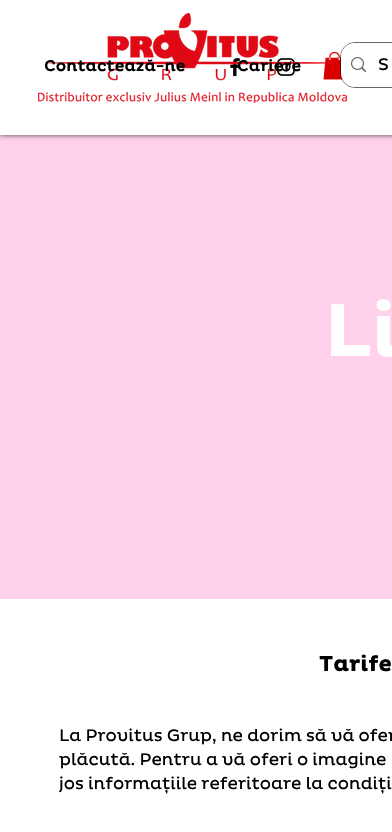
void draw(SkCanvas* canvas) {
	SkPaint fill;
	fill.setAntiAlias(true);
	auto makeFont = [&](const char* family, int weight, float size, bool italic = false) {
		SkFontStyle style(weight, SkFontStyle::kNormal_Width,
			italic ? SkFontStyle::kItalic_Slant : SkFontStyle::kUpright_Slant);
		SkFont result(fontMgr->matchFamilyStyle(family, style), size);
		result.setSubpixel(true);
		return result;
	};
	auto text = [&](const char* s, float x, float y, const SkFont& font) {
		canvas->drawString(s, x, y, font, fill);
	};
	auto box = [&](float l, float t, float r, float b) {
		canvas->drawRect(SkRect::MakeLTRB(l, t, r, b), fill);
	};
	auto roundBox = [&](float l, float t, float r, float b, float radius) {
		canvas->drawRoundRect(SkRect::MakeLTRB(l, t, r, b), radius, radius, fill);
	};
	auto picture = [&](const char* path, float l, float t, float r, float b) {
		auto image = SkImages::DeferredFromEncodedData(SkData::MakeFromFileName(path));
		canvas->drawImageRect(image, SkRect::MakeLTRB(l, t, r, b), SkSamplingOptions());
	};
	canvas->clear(0xFFFFD1EA);
	fill.setColor(0xB3000000);
	fill.setMaskFilter(SkMaskFilter::MakeBlur(kNormal_SkBlurStyle, 2.5f));
	canvas->drawRect(SkRect::MakeLTRB(0, 0, 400, 135), fill);
	fill.setMaskFilter(nullptr);
	fill.setColor(0xFFFFFFFF);
	box(0, 0, 392, 135);
	picture("image1.png", 230, 57, 240, 77);
	picture("image2.png", 277, 58, 295, 76);
	picture("image3.png", 323, 52, 343, 80);
	picture("image0.png", 38, 13, 347, 103);
	fill.setStyle(SkPaint::kStroke_Style);
	fill.setStrokeWidth(1);
	fill.setColor(0x99000000);
	canvas->drawRoundRect(SkRect::MakeLTRB(340.5f, 42.5f, 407.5f, 87.5f), 14.5f, 14.5f, fill);
	fill.setStyle(SkPaint::kFill_Style);
	fill.setColor(0xFFFFFFFF);
	roundBox(341, 43, 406, 87, 14);
	picture("image4.png", 351, 57, 366, 73);
	box(0, 599, 392, 832);
	auto font1 = makeFont("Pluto", 500, 16);
	fill.setColor(0xFF000000);
	text("Contactează-ne", 44, 71, font1);
	text("Cariere", 237, 71, font1);
	auto font2 = makeFont("Pluto", 400, 17);
	text("S", 378, 70, font2);
	auto font3 = makeFont("Pluto", 700, 76);
	fill.setColor(0xFFFFFFFF);
	text("Li", 324, 356, font3);
	auto font4 = makeFont("Pluto", 700, 22);
	fill.setColor(0xFF000000);
	text("Tarife", 319, 671, font4);
	text("La Provitus Grup, ne dorim să vă ofer", 59, 741, font2);
	text("plăcută. Pentru a vă oferi o imagine", 59, 765, font2);
	text("jos informațiile referitoare la condiți", 59, 789, font2);
}
